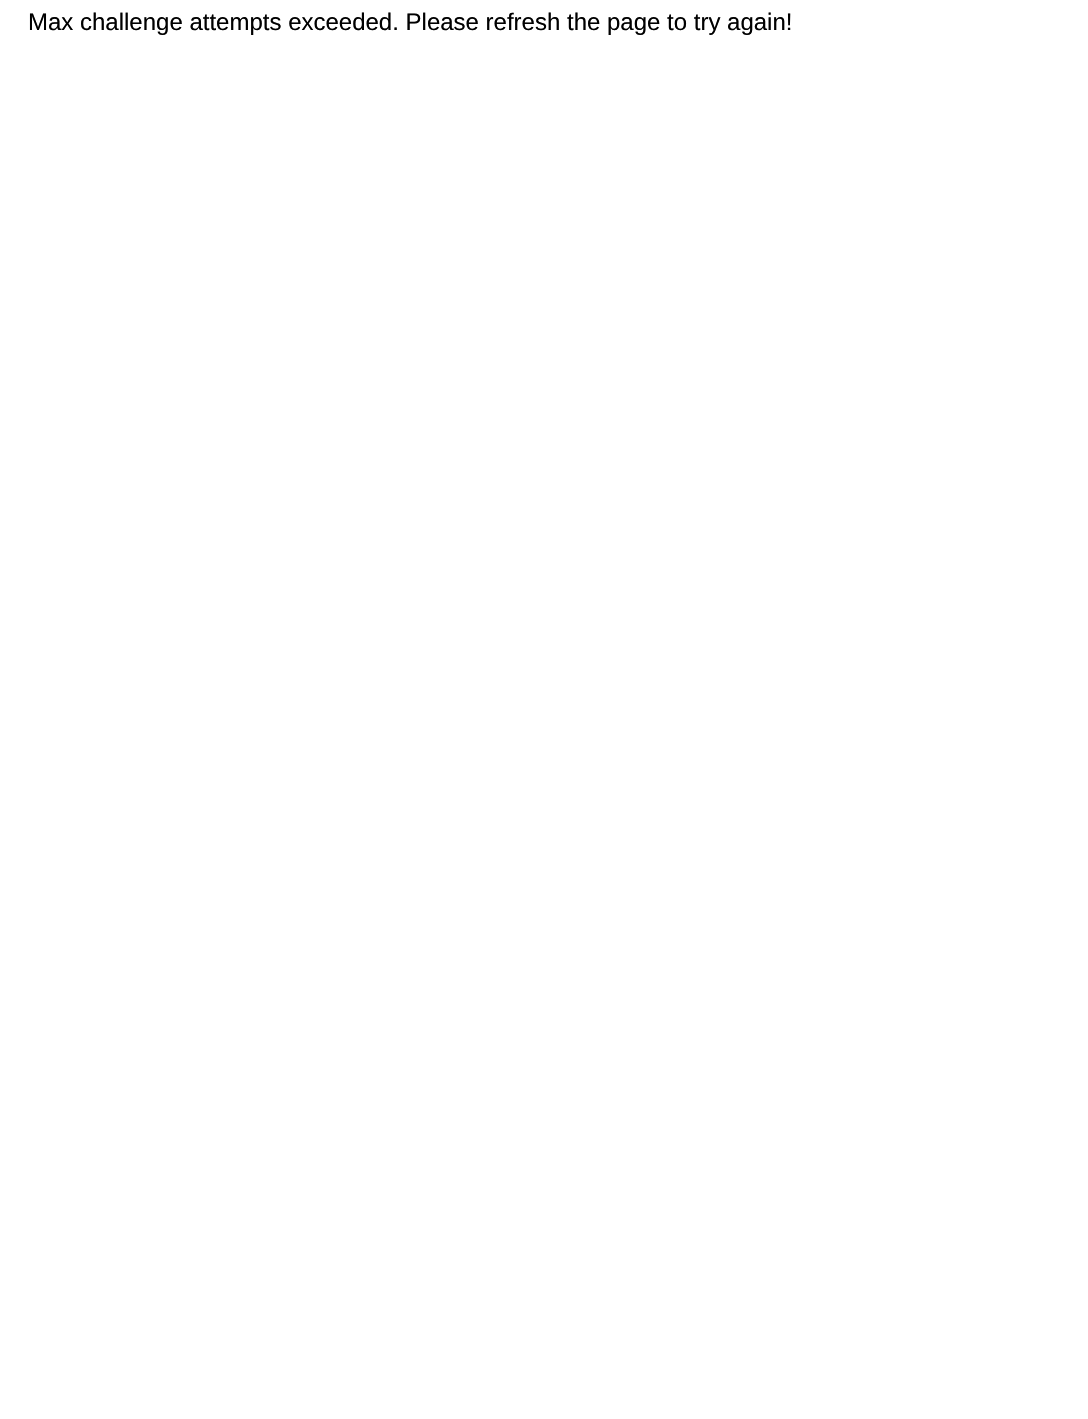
void draw(SkCanvas* canvas) {
	SkPaint fill;
	fill.setAntiAlias(true);
	auto makeFont = [&](const char* family, int weight, float size, bool italic = false) {
		SkFontStyle style(weight, SkFontStyle::kNormal_Width,
			italic ? SkFontStyle::kItalic_Slant : SkFontStyle::kUpright_Slant);
		SkFont result(fontMgr->matchFamilyStyle(family, style), size);
		result.setSubpixel(true);
		return result;
	};
	auto text = [&](const char* s, float x, float y, const SkFont& font) {
		canvas->drawString(s, x, y, font, fill);
	};
	canvas->clear(0xFFFFFFFF);
	auto font1 = makeFont("Liberation Sans", 400, 24);
	fill.setColor(0xFF000000);
	text("Max challenge attempts exceeded. Please refresh the page to try again!", 28, 30, font1);
}
